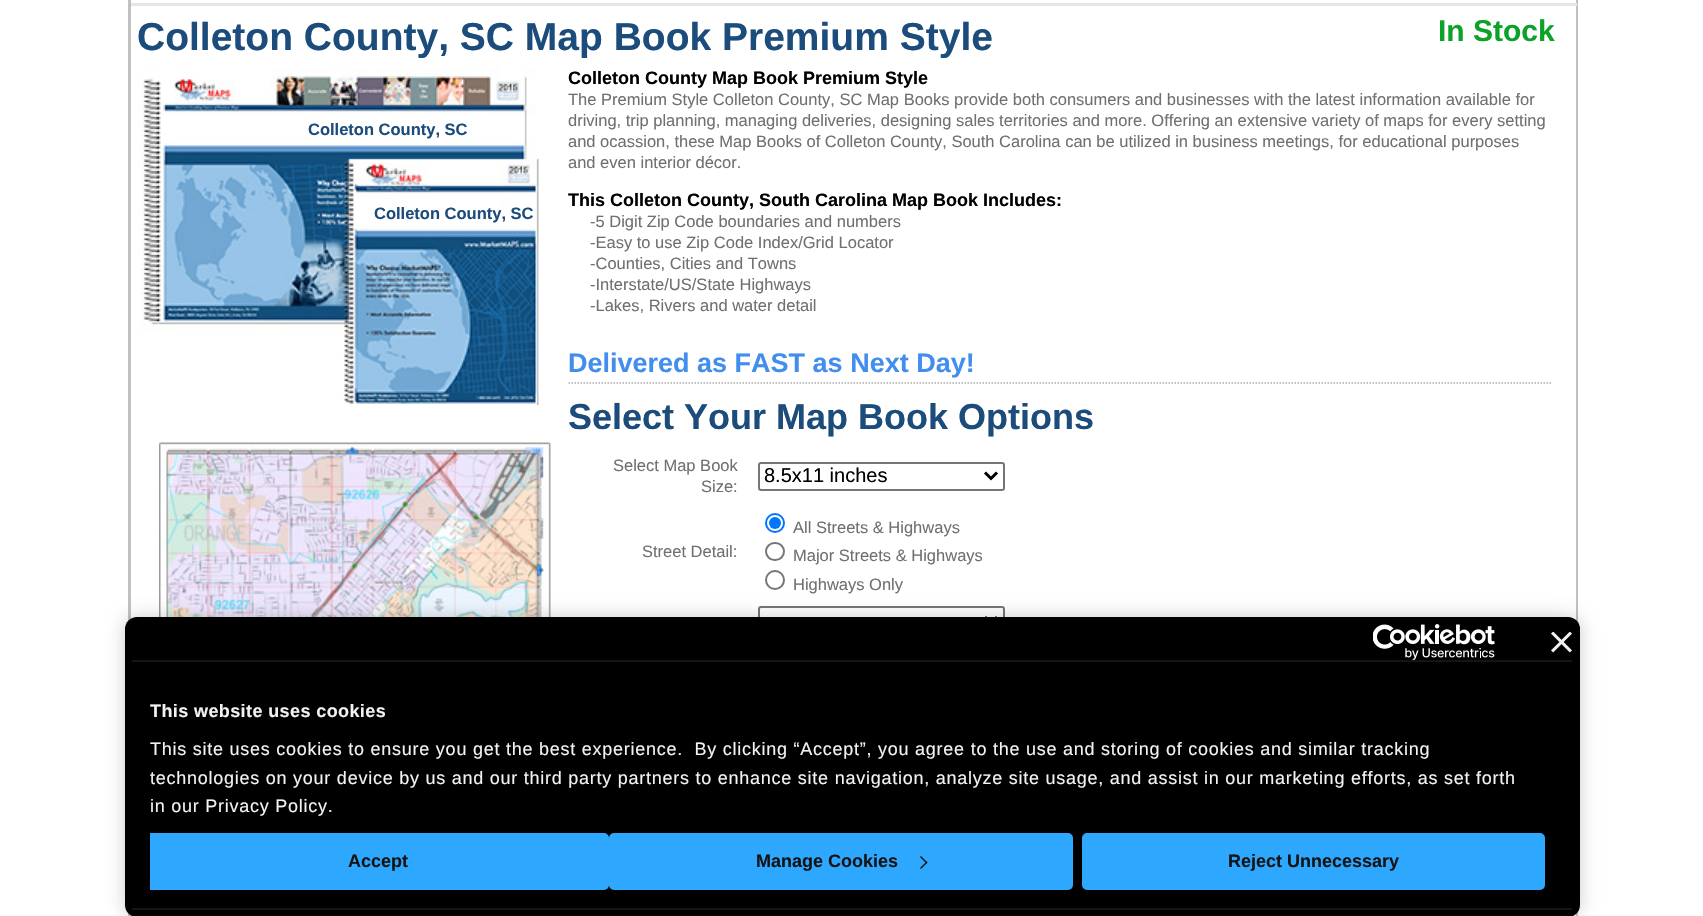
void draw(SkCanvas* canvas) {
	SkPaint fill;
	fill.setAntiAlias(true);
	auto makeFont = [&](const char* family, int weight, float size, bool italic = false) {
		SkFontStyle style(weight, SkFontStyle::kNormal_Width,
			italic ? SkFontStyle::kItalic_Slant : SkFontStyle::kUpright_Slant);
		SkFont result(fontMgr->matchFamilyStyle(family, style), size);
		result.setSubpixel(true);
		return result;
	};
	auto text = [&](const char* s, float x, float y, const SkFont& font) {
		canvas->drawString(s, x, y, font, fill);
	};
	auto spacedText = [&](const char* s, float x, float y, const SkFont& font, const SkPaint& ink, float letter, float word) {
		std::vector<SkGlyphID> glyphs(font.countText(s, strlen(s), SkTextEncoding::kUTF8));
		std::vector<float> xs(glyphs.size());
		font.textToGlyphs(s, strlen(s), SkTextEncoding::kUTF8, glyphs);
		font.getXPos(glyphs, xs, x);
		float extra = 0;
		for (size_t i = 0; i < glyphs.size(); i++) {
			xs[i] += extra;
			extra += letter + word * (glyphs[i] == font.unicharToGlyph(' '));
		}
		canvas->drawTextBlob(SkTextBlob::MakeFromPosHGlyphs(glyphs, xs, y, font), 0, 0, ink);
	};
	auto box = [&](float l, float t, float r, float b) {
		canvas->drawRect(SkRect::MakeLTRB(l, t, r, b), fill);
	};
	auto roundBox = [&](float l, float t, float r, float b, float radius) {
		canvas->drawRoundRect(SkRect::MakeLTRB(l, t, r, b), radius, radius, fill);
	};
	auto picture = [&](const char* path, float l, float t, float r, float b) {
		auto image = SkImages::DeferredFromEncodedData(SkData::MakeFromFileName(path));
		canvas->drawImageRect(image, SkRect::MakeLTRB(l, t, r, b), SkSamplingOptions());
	};
	canvas->clear(0xFFFFFFFF);
	fill.setStyle(SkPaint::kStroke_Style);
	fill.setStrokeWidth(2);
	fill.setColor(0xFFC0C2C2);
	canvas->drawRect(SkRect::MakeLTRB(129, -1, 1577, 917), fill);
	fill.setStyle(SkPaint::kFill_Style);
	box(130, 0, 131, 916);
	fill.setColor(0xFFE6E6E6);
	box(131, 3, 1577, 6);
	picture("image0.png", 140, 67, 540, 405);
	picture("image1.png", 159, 442, 551, 617);
	fill.setStyle(SkPaint::kStroke_Style);
	fill.setStrokeWidth(1.5f);
	fill.setColor(0xFFACACAC);
	fill.setPathEffect(SkDashPathEffect::Make({{1.5f, 1.5f}}, 0));
	canvas->drawPath(SkPathBuilder().moveTo(568.5f, 383).lineTo(1551, 383).detach(), fill);
	fill.setPathEffect(nullptr);
	fill.setStrokeWidth(2);
	fill.setColor(0xFF767676);
	canvas->drawRoundRect(SkRect::MakeLTRB(759, 463, 1004, 490), 2, 2, fill);
	fill.setStrokeWidth(3);
	fill.setColor(0xFF000000);
	canvas->drawPath(SkPathBuilder().moveTo(985, 472.5f).lineTo(991, 478.5f).lineTo(997, 472.5f).detach(), fill);
	fill.setStrokeWidth(2);
	fill.setColor(0xFF0075FF);
	canvas->drawCircle(775, 523, 9, fill);
	fill.setStyle(SkPaint::kFill_Style);
	canvas->drawCircle(775, 523, 6, fill);
	fill.setStyle(SkPaint::kStroke_Style);
	fill.setColor(0xFF767676);
	canvas->drawRoundRect(SkRect::MakeLTRB(766, 543, 784, 560), 8.5f, 8.5f, fill);
	canvas->drawCircle(775, 580, 9, fill);
	canvas->drawRoundRect(SkRect::MakeLTRB(759, 607, 1004, 634), 2, 2, fill);
	fill.setStrokeWidth(3);
	fill.setColor(0xFF000000);
	canvas->drawPath(SkPathBuilder().moveTo(985, 617).lineTo(991, 623).lineTo(997, 617).detach(), fill);
	fill.setStyle(SkPaint::kFill_Style);
	fill.setColor(0x33000000);
	fill.setMaskFilter(SkMaskFilter::MakeBlur(kNormal_SkBlurStyle, 9));
	canvas->drawRoundRect(SkRect::MakeLTRB(125, 617, 1580, 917), 12, 12, fill);
	fill.setMaskFilter(nullptr);
	fill.setColor(0xFF000000);
	roundBox(125, 617, 1580, 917, 12);
	fill.setColor(0xFF141414);
	box(132, 660, 1572, 662);
	picture("image2.png", 1373, 624, 1495, 660);
	picture("image3.png", 1551, 632, 1572, 653);
	box(132, 908, 1572, 910);
	canvas->save();
	canvas->clipRect(SkRect::MakeLTRB(150, 833, 1554, 890));
	fill.setColor(0xFF2EA7FF);
	canvas->drawRoundRect(SkRect::MakeLTRB(147.5f, 834.5f, 607.5f, 888.5f), 3.5f, 3.5f, fill);
	fill.setStyle(SkPaint::kStroke_Style);
	canvas->drawRoundRect(SkRect::MakeLTRB(147.5f, 834.5f, 607.5f, 888.5f), 3.5f, 3.5f, fill);
	canvas->restore();
	fill.setStyle(SkPaint::kFill_Style);
	canvas->drawRoundRect(SkRect::MakeLTRB(610.5f, 834.5f, 1071.5f, 888.5f), 3.5f, 3.5f, fill);
	fill.setStyle(SkPaint::kStroke_Style);
	canvas->drawRoundRect(SkRect::MakeLTRB(610.5f, 834.5f, 1071.5f, 888.5f), 3.5f, 3.5f, fill);
	fill.setStyle(SkPaint::kFill_Style);
	fill.setColor(0xFF141414);
	canvas->drawPath(SkPathBuilder().moveTo(921, 856).lineTo(927.5f, 862.5f).lineTo(926.5f, 863.5f).lineTo(920, 857).close().detach(), fill);
	canvas->drawPath(SkPathBuilder().moveTo(926.5f, 861.5f).lineTo(927.5f, 862.5f).lineTo(921, 869).lineTo(920, 868).close().detach(), fill);
	fill.setColor(0xFF2EA7FF);
	canvas->drawRoundRect(SkRect::MakeLTRB(1083.5f, 834.5f, 1543.5f, 888.5f), 3.5f, 3.5f, fill);
	fill.setStyle(SkPaint::kStroke_Style);
	canvas->drawRoundRect(SkRect::MakeLTRB(1083.5f, 834.5f, 1543.5f, 888.5f), 3.5f, 3.5f, fill);
	auto font1 = makeFont("Liberation Sans", 700, 39);
	fill.setStyle(SkPaint::kFill_Style);
	fill.setColor(0xFF1C4C7B);
	text("Colleton County, SC Map Book Premium Style", 137, 50, font1);
	auto font2 = makeFont("Liberation Sans", 700, 30);
	fill.setColor(0xFF0BA227);
	text("In Stock", 1438, 41, font2);
	auto font3 = makeFont("Liberation Sans", 700, 16.5f);
	fill.setColor(0xFF1C4C7B);
	text("Colleton County, SC", 308, 135, font3);
	text("Colleton County, SC", 374, 219, font3);
	auto font4 = makeFont("Liberation Sans", 700, 18);
	fill.setColor(0xFF000000);
	text("Colleton County Map Book Premium Style", 568, 84, font4);
	auto font5 = makeFont("Liberation Sans", 400, 16.5f);
	fill.setColor(0xFF707070);
	text("The Premium Style Colleton County, SC Map Books provide both consumers and businesses with the latest information available for", 568, 105, font5);
	text("driving, trip planning, managing deliveries, designing sales territories and more. Offering an extensive variety of maps for every setting", 568, 126, font5);
	text("and ocassion, these Map Books of Colleton County, South Carolina can be utilized in business meetings, for educational purposes", 568, 147, font5);
	text("and even interior décor.", 568, 168, font5);
	fill.setColor(0xFF000000);
	text("This Colleton County, South Carolina Map Book Includes:", 568, 206, font4);
	fill.setColor(0xFF707070);
	text("-5 Digit Zip Code boundaries and numbers", 590, 227, font5);
	text("-Easy to use Zip Code Index/Grid Locator", 590, 248, font5);
	text("-Counties, Cities and Towns", 590, 269, font5);
	text("-Interstate/US/State Highways", 590, 290, font5);
	text("-Lakes, Rivers and water detail", 590, 311, font5);
	auto font6 = makeFont("Liberation Sans", 700, 27);
	fill.setColor(0xFF428EEF);
	text("Delivered as FAST as Next Day!", 568, 372, font6);
	auto font7 = makeFont("Liberation Sans", 700, 36);
	fill.setColor(0xFF1C4C7B);
	text("Select Your Map Book Options", 568, 429, font7);
	fill.setColor(0xFF707070);
	text("Select Map Book", 613, 471, font5);
	text("Size:", 701, 492, font5);
	auto font8 = makeFont("Liberation Sans", 400, 20);
	fill.setColor(0xFF000000);
	text("8.5x11 inches", 764, 482, font8);
	fill.setColor(0xFF707070);
	text("Street Detail:", 642, 557, font5);
	text("All Streets & Highways", 793, 533, font5);
	text("Major Streets & Highways", 793, 561, font5);
	text("Highways Only", 793, 590, font5);
	fill.setColor(0xFFF2F2F2);
	spacedText("This website uses cookies", 150, 717, font4, fill, 0.4f, 0);
	auto font9 = makeFont("Liberation Sans", 400, 18);
	spacedText("This site uses cookies to ensure you get the best experience.  By clicking “Accept”, you agree to the use and storing of cookies and similar tracking", 150, 755, font9, fill, 0.75f, 0);
	spacedText("technologies on your device by us and our third party partners to enhance site navigation, analyze site usage, and assist in our marketing efforts, as set forth", 150, 784, font9, fill, 0.75f, 0);
	spacedText("in our Privacy Policy.", 150, 812, font9, fill, 0.75f, 0);
	fill.setColor(0xFF141414);
	text("Accept", 348, 867, font4);
	text("Manage Cookies", 756, 867, font4);
	text("Reject Unnecessary", 1228, 867, font4);
}
